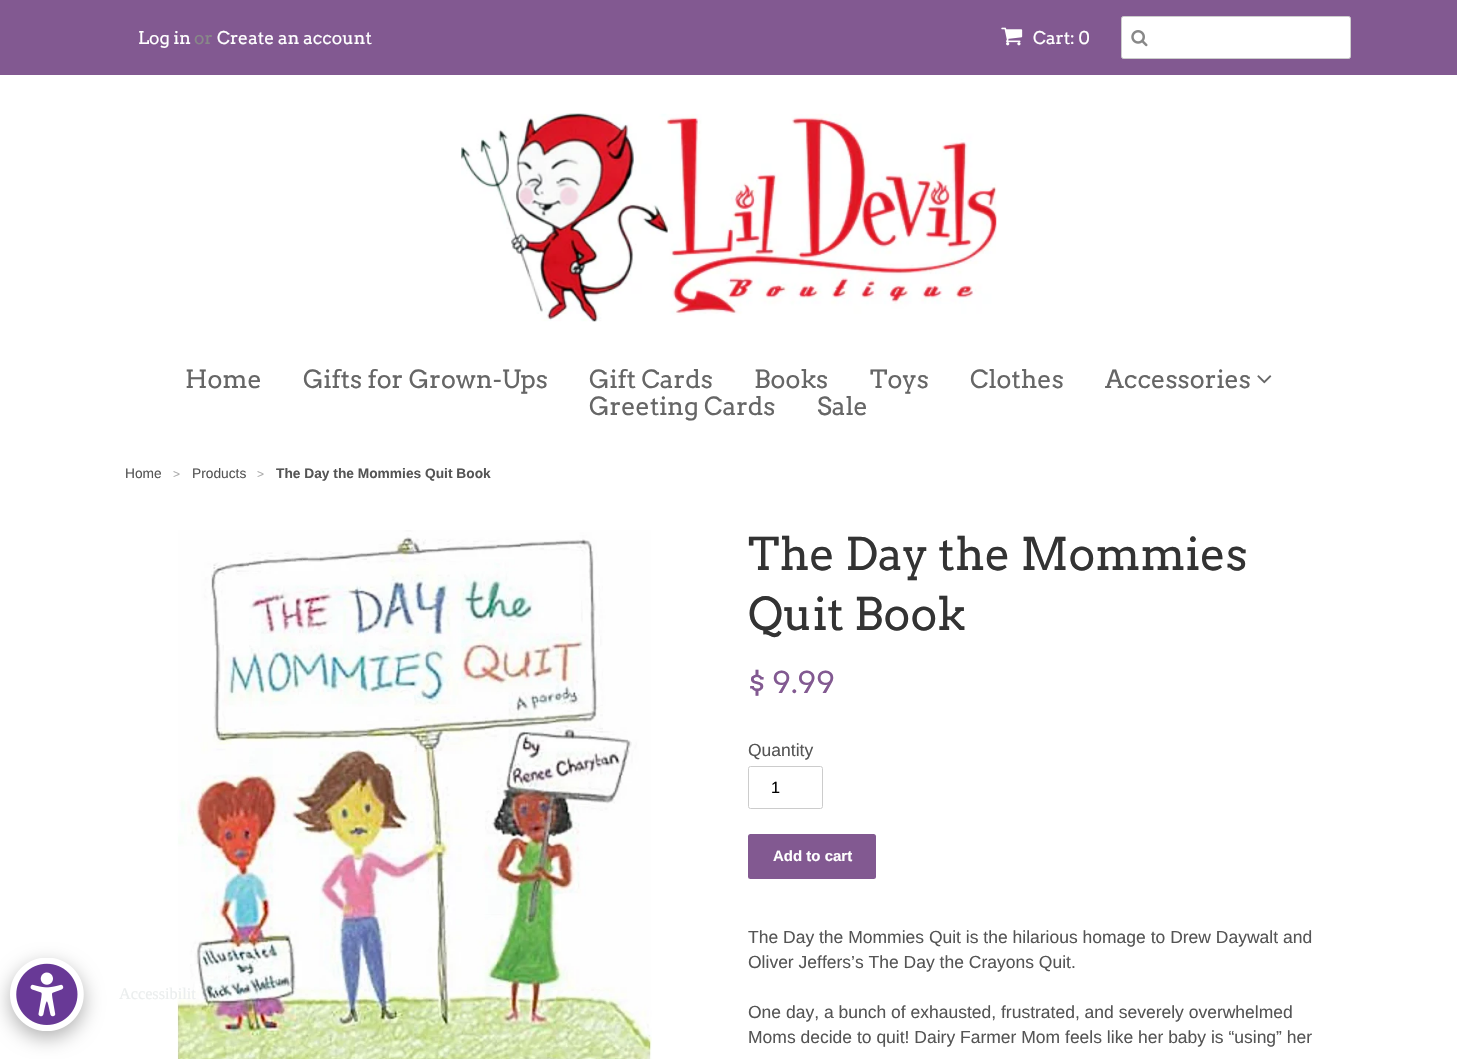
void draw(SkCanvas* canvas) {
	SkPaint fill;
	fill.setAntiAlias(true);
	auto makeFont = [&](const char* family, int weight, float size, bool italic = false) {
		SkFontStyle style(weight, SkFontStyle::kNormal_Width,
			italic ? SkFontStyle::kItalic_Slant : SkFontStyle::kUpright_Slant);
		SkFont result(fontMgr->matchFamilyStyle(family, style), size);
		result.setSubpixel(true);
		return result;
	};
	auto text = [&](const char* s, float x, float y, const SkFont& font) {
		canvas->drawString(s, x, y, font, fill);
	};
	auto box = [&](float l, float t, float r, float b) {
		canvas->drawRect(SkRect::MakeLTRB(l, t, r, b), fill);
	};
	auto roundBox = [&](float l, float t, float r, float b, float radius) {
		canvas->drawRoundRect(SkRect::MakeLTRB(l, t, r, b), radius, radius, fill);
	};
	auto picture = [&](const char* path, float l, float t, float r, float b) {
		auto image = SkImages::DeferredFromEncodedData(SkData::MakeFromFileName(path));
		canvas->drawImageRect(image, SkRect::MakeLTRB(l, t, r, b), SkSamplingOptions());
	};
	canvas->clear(0xFFFFFFFF);
	fill.setColor(0xFF825991);
	box(0, 0, 1457, 75);
	picture("image0.png", 1001, 27, 1023, 46);
	fill.setColor(0xFFFFFFFF);
	canvas->drawRoundRect(SkRect::MakeLTRB(1121.5f, 16.5f, 1350.5f, 58.5f), 2, 2, fill);
	fill.setStyle(SkPaint::kStroke_Style);
	fill.setStrokeWidth(1);
	fill.setColor(0xFFCCCCCC);
	canvas->drawRoundRect(SkRect::MakeLTRB(1121.5f, 16.5f, 1350.5f, 58.5f), 2, 2, fill);
	picture("image1.png", 1131, 30, 1148, 47);
	picture("image2.png", 461, 113, 997, 322);
	picture("image3.png", 1257, 375, 1272, 384);
	picture("image4.png", 177, 530, 652, 1059);
	canvas->drawRoundRect(SkRect::MakeLTRB(748.5f, 766.5f, 822.5f, 808.5f), 2, 2, fill);
	fill.setStyle(SkPaint::kFill_Style);
	fill.setColor(0xFF825991);
	roundBox(748, 834, 876, 879, 2.5f);
	fill.setColor(0x4D000000);
	fill.setMaskFilter(SkMaskFilter::MakeBlur(kNormal_SkBlurStyle, 9.5f));
	canvas->drawRoundRect(SkRect::MakeLTRB(10, 964, 84, 1038), 37, 37, fill);
	fill.setMaskFilter(nullptr);
	picture("image5.png", 10, 958, 84, 1031);
	auto font1 = makeFont("Arvo", 400, 17.5f);
	fill.setColor(0xFFFFFFFF);
	text("Log in", 138, 44, font1);
	fill.setColor(0xFF888888);
	text("or", 194, 44, font1);
	fill.setColor(0xFFFFFFFF);
	text("Create an account", 217, 44, font1);
	text("Cart: 0", 1033, 44, font1);
	auto font2 = makeFont("Arvo", 400, 25);
	fill.setColor(0xFF666666);
	text("Home", 185, 388, font2);
	text("Gifts for Grown-Ups", 303, 388, font2);
	text("Gift Cards", 589, 388, font2);
	text("Books", 754, 388, font2);
	text("Toys", 870, 388, font2);
	text("Clothes", 970, 388, font2);
	text("Accessories", 1105, 388, font2);
	text("Greeting Cards", 589, 415, font2);
	text("Sale", 817, 415, font2);
	auto font3 = makeFont("Liberation Sans", 400, 13.75f);
	fill.setColor(0xFF555555);
	text("Home", 125, 478, font3);
	auto font4 = makeFont("Liberation Sans", 400, 12);
	fill.setColor(0xFFAAAAAA);
	text(">", 173, 478, font4);
	fill.setColor(0xFF555555);
	text("Products", 192, 478, font3);
	fill.setColor(0xFFAAAAAA);
	text(">", 257, 478, font4);
	auto font5 = makeFont("Liberation Sans", 700, 13.75f);
	fill.setColor(0xFF555555);
	text("The Day the Mommies Quit Book", 276, 478, font5);
	auto font6 = makeFont("Arvo", 400, 45);
	fill.setColor(0xFF333333);
	text("The Day the Mommies", 748, 570, font6);
	text("Quit Book", 748, 630, font6);
	auto font7 = makeFont("Arvo", 400, 30);
	fill.setColor(0xFF825991);
	text("$ 9.99", 748, 693, font7);
	auto font8 = makeFont("Liberation Sans", 400, 17.5f);
	fill.setColor(0xFF555555);
	text("Quantity", 748, 756, font8);
	auto font9 = makeFont("Liberation Sans", 400, 16.25f);
	fill.setColor(0xFF000000);
	text("1", 771, 793, font9);
	auto font10 = makeFont("Liberation Sans", 700, 15);
	fill.setColor(0xFFFFFFFF);
	text("Add to cart", 773, 861, font10);
	fill.setColor(0xFF555555);
	text("The Day the Mommies Quit is the hilarious homage to Drew Daywalt and", 748, 943, font8);
	text("Oliver Jeffers’s The Day the Crayons Quit.", 748, 968, font8);
	text("One day, a bunch of exhausted, frustrated, and severely overwhelmed", 748, 1018, font8);
	text("Moms decide to quit! Dairy Farmer Mom feels like her baby is “using” her", 748, 1043, font8);
	auto font11 = makeFont("Liberation Serif", 400, 16.25f);
	fill.setColor(0xFFEBEEEE);
	text("Accessibilit", 119, 999, font11);
}
